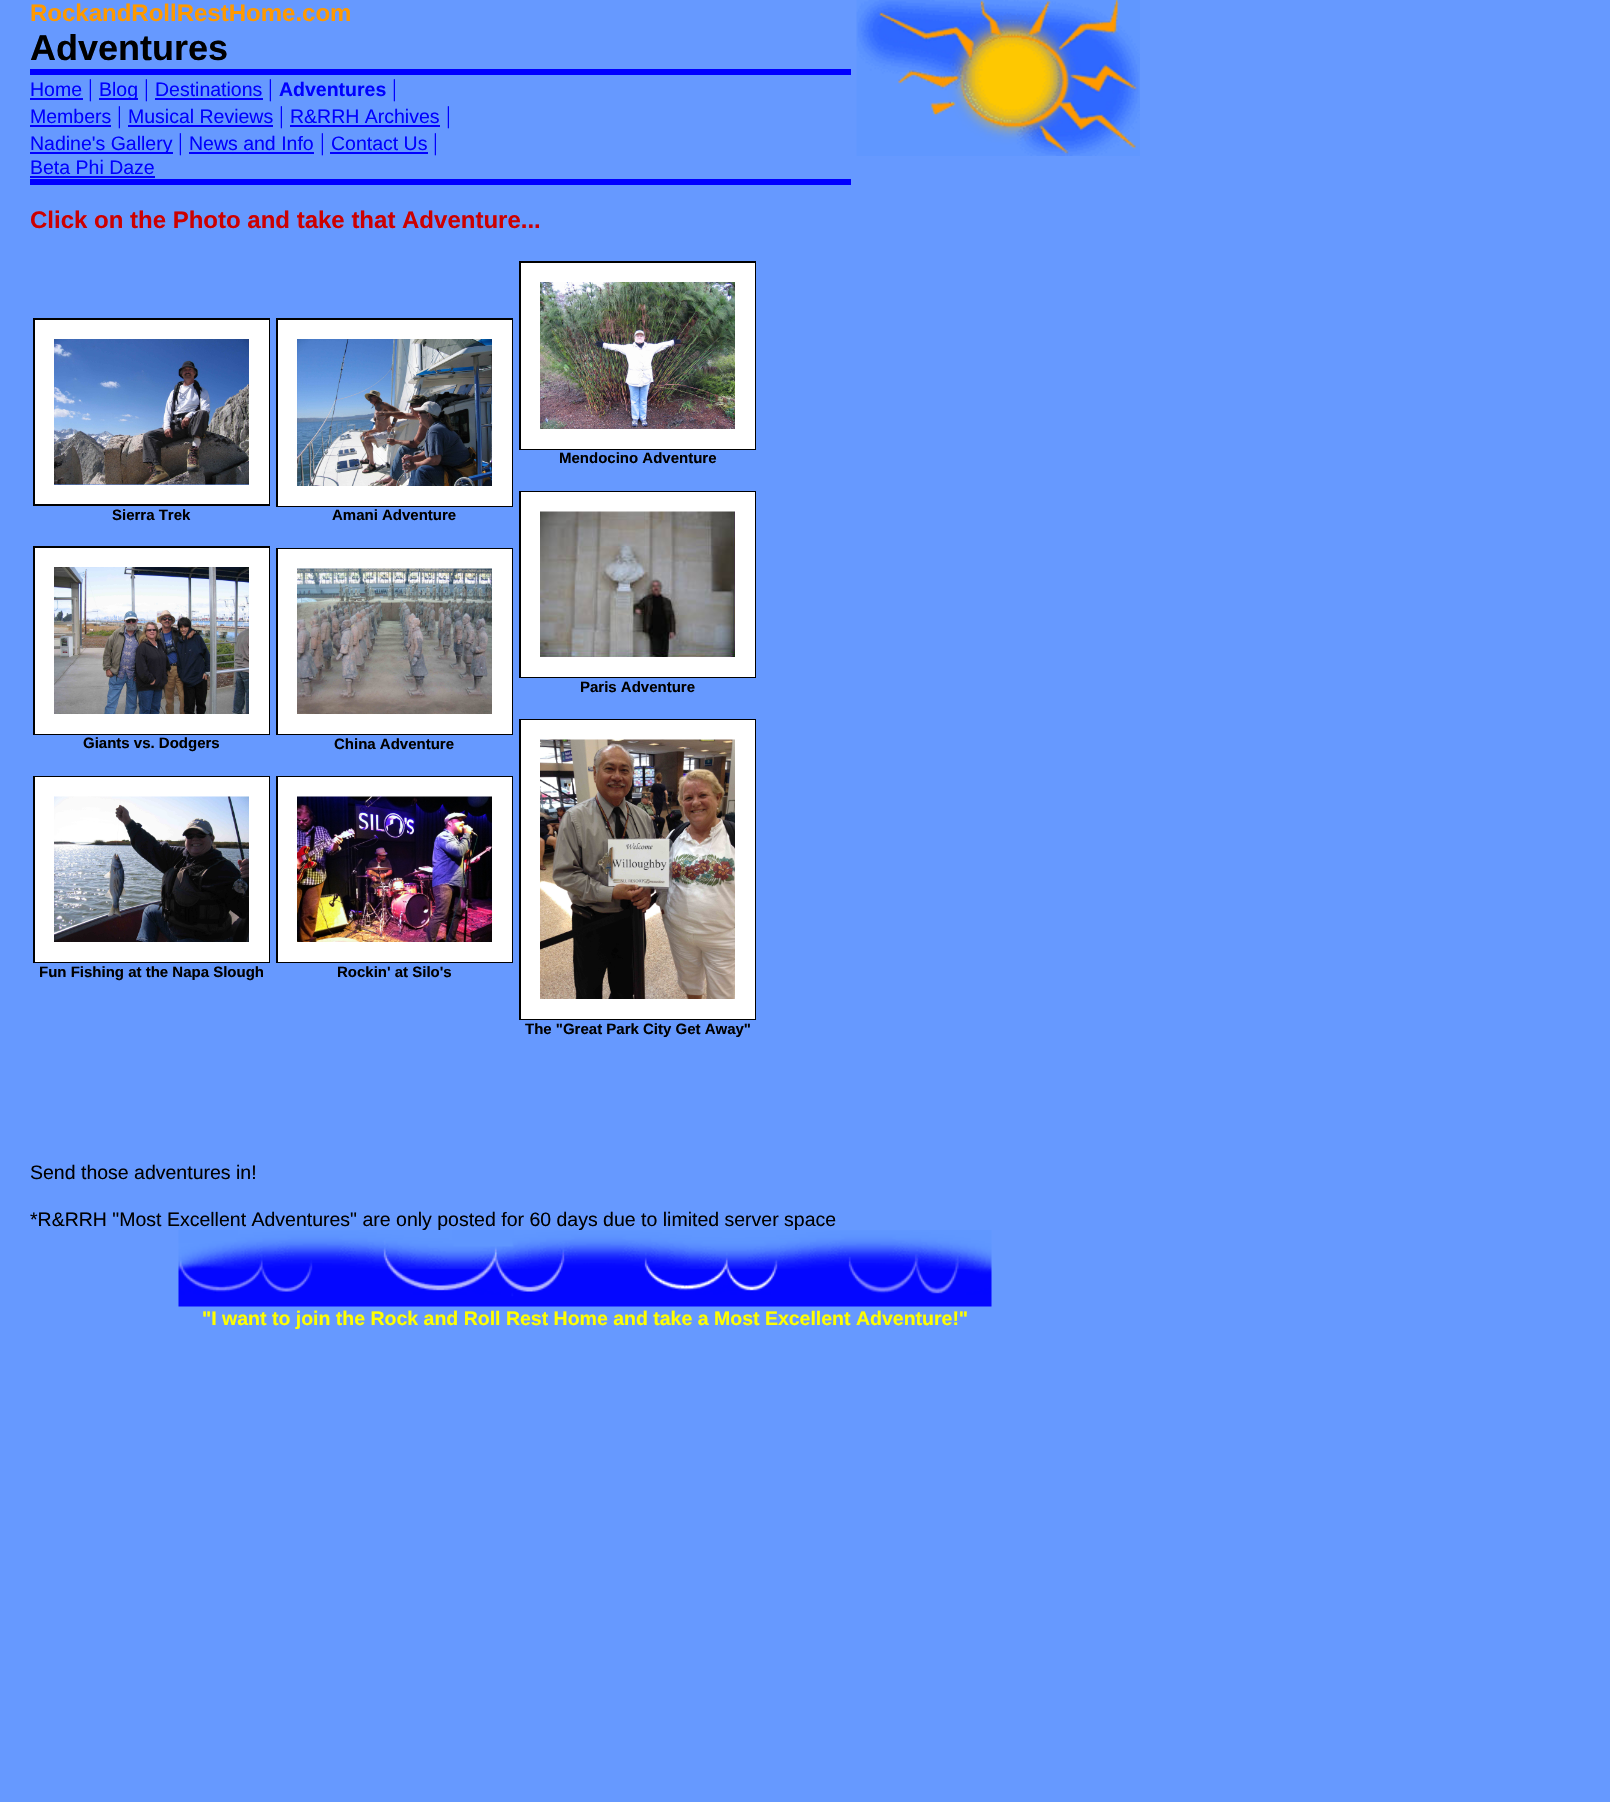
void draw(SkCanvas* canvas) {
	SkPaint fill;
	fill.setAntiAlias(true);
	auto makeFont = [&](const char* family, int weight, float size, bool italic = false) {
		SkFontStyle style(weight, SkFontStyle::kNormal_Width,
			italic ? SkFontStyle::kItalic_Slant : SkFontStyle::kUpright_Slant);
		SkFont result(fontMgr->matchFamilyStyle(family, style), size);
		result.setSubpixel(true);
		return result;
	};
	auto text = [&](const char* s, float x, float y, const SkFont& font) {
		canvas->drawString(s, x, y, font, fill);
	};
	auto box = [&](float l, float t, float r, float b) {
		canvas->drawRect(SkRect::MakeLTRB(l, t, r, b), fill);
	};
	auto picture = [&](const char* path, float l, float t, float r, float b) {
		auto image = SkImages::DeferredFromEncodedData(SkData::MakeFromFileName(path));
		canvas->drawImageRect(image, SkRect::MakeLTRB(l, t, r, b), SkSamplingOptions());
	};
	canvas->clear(0xFF6699FF);
	fill.setColor(0xFF0000FF);
	box(30, 69, 851, 75);
	box(30, 98, 83, 100);
	box(99, 98, 138, 100);
	box(155, 98, 263, 100);
	box(30, 125, 111, 127);
	box(128, 125, 273, 127);
	box(290, 125, 440, 127);
	box(30, 152, 173, 154);
	box(189, 152, 314, 154);
	box(330, 152, 428, 154);
	box(30, 176, 155, 178);
	box(30, 179, 851, 185);
	picture("image0.png", 856, 0, 1140, 156);
	fill.setStyle(SkPaint::kStroke_Style);
	fill.setStrokeWidth(2);
	fill.setColor(0xFF000000);
	canvas->drawRect(SkRect::MakeLTRB(34, 319, 269, 505), fill);
	fill.setStyle(SkPaint::kFill_Style);
	fill.setColor(0xFFFFFFFF);
	box(35, 320, 269, 339);
	box(35, 339, 54, 485);
	picture("image1.png", 54, 339, 249, 485);
	box(249, 339, 269, 485);
	box(35, 485, 269, 504);
	fill.setStyle(SkPaint::kStroke_Style);
	fill.setColor(0xFF000000);
	canvas->drawRect(SkRect::MakeLTRB(34, 547, 269, 734), fill);
	fill.setStyle(SkPaint::kFill_Style);
	fill.setColor(0xFFFFFFFF);
	box(35, 548, 269, 567);
	box(35, 567, 54, 714);
	picture("image2.png", 54, 567, 249, 714);
	box(249, 567, 269, 714);
	box(35, 714, 269, 734);
	fill.setStyle(SkPaint::kStroke_Style);
	fill.setColor(0xFF000000);
	canvas->drawRect(SkRect::MakeLTRB(34, 777, 269, 962), fill);
	fill.setStyle(SkPaint::kFill_Style);
	fill.setColor(0xFFFFFFFF);
	box(35, 777, 269, 797);
	box(35, 797, 54, 942);
	picture("image3.png", 54, 796, 249, 942);
	box(249, 797, 269, 942);
	box(35, 942, 269, 962);
	fill.setStyle(SkPaint::kStroke_Style);
	fill.setColor(0xFF000000);
	canvas->drawRect(SkRect::MakeLTRB(277, 319, 512, 506), fill);
	fill.setStyle(SkPaint::kFill_Style);
	fill.setColor(0xFFFFFFFF);
	box(278, 320, 512, 339);
	box(278, 339, 297, 486);
	picture("image4.png", 297, 339, 492, 486);
	box(492, 339, 512, 486);
	box(278, 486, 512, 506);
	fill.setStyle(SkPaint::kStroke_Style);
	fill.setColor(0xFF000000);
	canvas->drawRect(SkRect::MakeLTRB(277, 549, 512, 734), fill);
	fill.setStyle(SkPaint::kFill_Style);
	fill.setColor(0xFFFFFFFF);
	box(278, 549, 512, 569);
	box(278, 569, 297, 714);
	picture("image5.png", 297, 568, 492, 714);
	box(492, 569, 512, 714);
	box(278, 714, 512, 734);
	fill.setStyle(SkPaint::kStroke_Style);
	fill.setColor(0xFF000000);
	canvas->drawRect(SkRect::MakeLTRB(277, 777, 512, 962), fill);
	fill.setStyle(SkPaint::kFill_Style);
	fill.setColor(0xFFFFFFFF);
	box(278, 777, 512, 797);
	box(278, 797, 297, 942);
	picture("image6.png", 297, 796, 492, 942);
	box(492, 797, 512, 942);
	box(278, 942, 512, 962);
	fill.setStyle(SkPaint::kStroke_Style);
	fill.setColor(0xFF000000);
	canvas->drawRect(SkRect::MakeLTRB(520, 262, 755, 449), fill);
	fill.setStyle(SkPaint::kFill_Style);
	fill.setColor(0xFFFFFFFF);
	box(521, 263, 755, 282);
	box(521, 282, 540, 429);
	picture("image7.png", 540, 282, 735, 429);
	box(735, 282, 755, 429);
	box(521, 429, 755, 449);
	fill.setStyle(SkPaint::kStroke_Style);
	fill.setColor(0xFF000000);
	canvas->drawRect(SkRect::MakeLTRB(520, 492, 755, 677), fill);
	fill.setStyle(SkPaint::kFill_Style);
	fill.setColor(0xFFFFFFFF);
	box(521, 492, 755, 512);
	box(521, 512, 540, 657);
	picture("image8.png", 540, 511, 735, 657);
	box(735, 512, 755, 657);
	box(521, 657, 755, 677);
	fill.setStyle(SkPaint::kStroke_Style);
	fill.setColor(0xFF000000);
	canvas->drawRect(SkRect::MakeLTRB(520, 720, 755, 1019), fill);
	fill.setStyle(SkPaint::kFill_Style);
	fill.setColor(0xFFFFFFFF);
	box(521, 720, 755, 740);
	box(521, 740, 540, 999);
	picture("image9.png", 540, 739, 735, 999);
	box(735, 740, 755, 999);
	box(521, 999, 755, 1019);
	auto font1 = makeFont("Liberation Sans", 700, 24);
	fill.setColor(0xFFFF9900);
	text("RockandRollRestHome.com", 30, 21, font1);
	auto font2 = makeFont("Liberation Sans", 700, 36);
	fill.setColor(0xFF000000);
	text("Adventures", 30, 60, font2);
	auto font3 = makeFont("Liberation Sans", 400, 19.5f);
	fill.setColor(0xFF0000FF);
	text("Home", 30, 96, font3);
	auto font4 = makeFont("Liberation Serif", 400, 24);
	text("|", 88, 96, font4);
	text("Blog", 99, 96, font3);
	text("|", 144, 96, font4);
	text("Destinations", 155, 96, font3);
	text("|", 268, 96, font4);
	auto font5 = makeFont("Liberation Sans", 700, 19.5f);
	text("Adventures", 279, 96, font5);
	text("|", 392, 96, font4);
	text("Members", 30, 123, font3);
	text("|", 117, 123, font4);
	text("Musical Reviews", 128, 123, font3);
	text("|", 279, 123, font4);
	text("R&RRH Archives", 290, 123, font3);
	text("|", 446, 123, font4);
	text("Nadine's Gallery", 30, 150, font3);
	text("|", 178, 150, font4);
	text("News and Info", 189, 150, font3);
	text("|", 320, 150, font4);
	text("Contact Us", 331, 150, font3);
	text("|", 433, 150, font4);
	text("Beta Phi Daze", 30, 174, font3);
	fill.setColor(0xFFCC0000);
	text("Click on the Photo and take that Adventure...", 30, 228, font1);
	auto font6 = makeFont("Liberation Sans", 700, 15);
	fill.setColor(0xFF000000);
	text("Sierra Trek", 112, 520, font6);
	text("Giants vs. Dodgers", 83, 748, font6);
	text("Fun Fishing at the Napa Slough", 39, 977, font6);
	text("Amani Adventure", 332, 520, font6);
	text("China Adventure", 334, 749, font6);
	text("Rockin' at Silo's", 337, 977, font6);
	text("Mendocino Adventure", 559, 463, font6);
	text("Paris Adventure", 580, 692, font6);
	text("The \"Great Park City Get Away\"", 525, 1034, font6);
	text("Send those adventures in!", 30, 1179, font3);
	text("*R&RRH \"Most Excellent Adventures\" are only posted for 60 days due to limited server space", 30, 1226, font3);
	picture("image10.png", 178, 1230, 992, 1307);
	fill.setColor(0xFFFFFF00);
	text("\"I want to join the Rock and Roll Rest Home and take a Most Excellent Adventure!\"", 202, 1325, font5);
}
